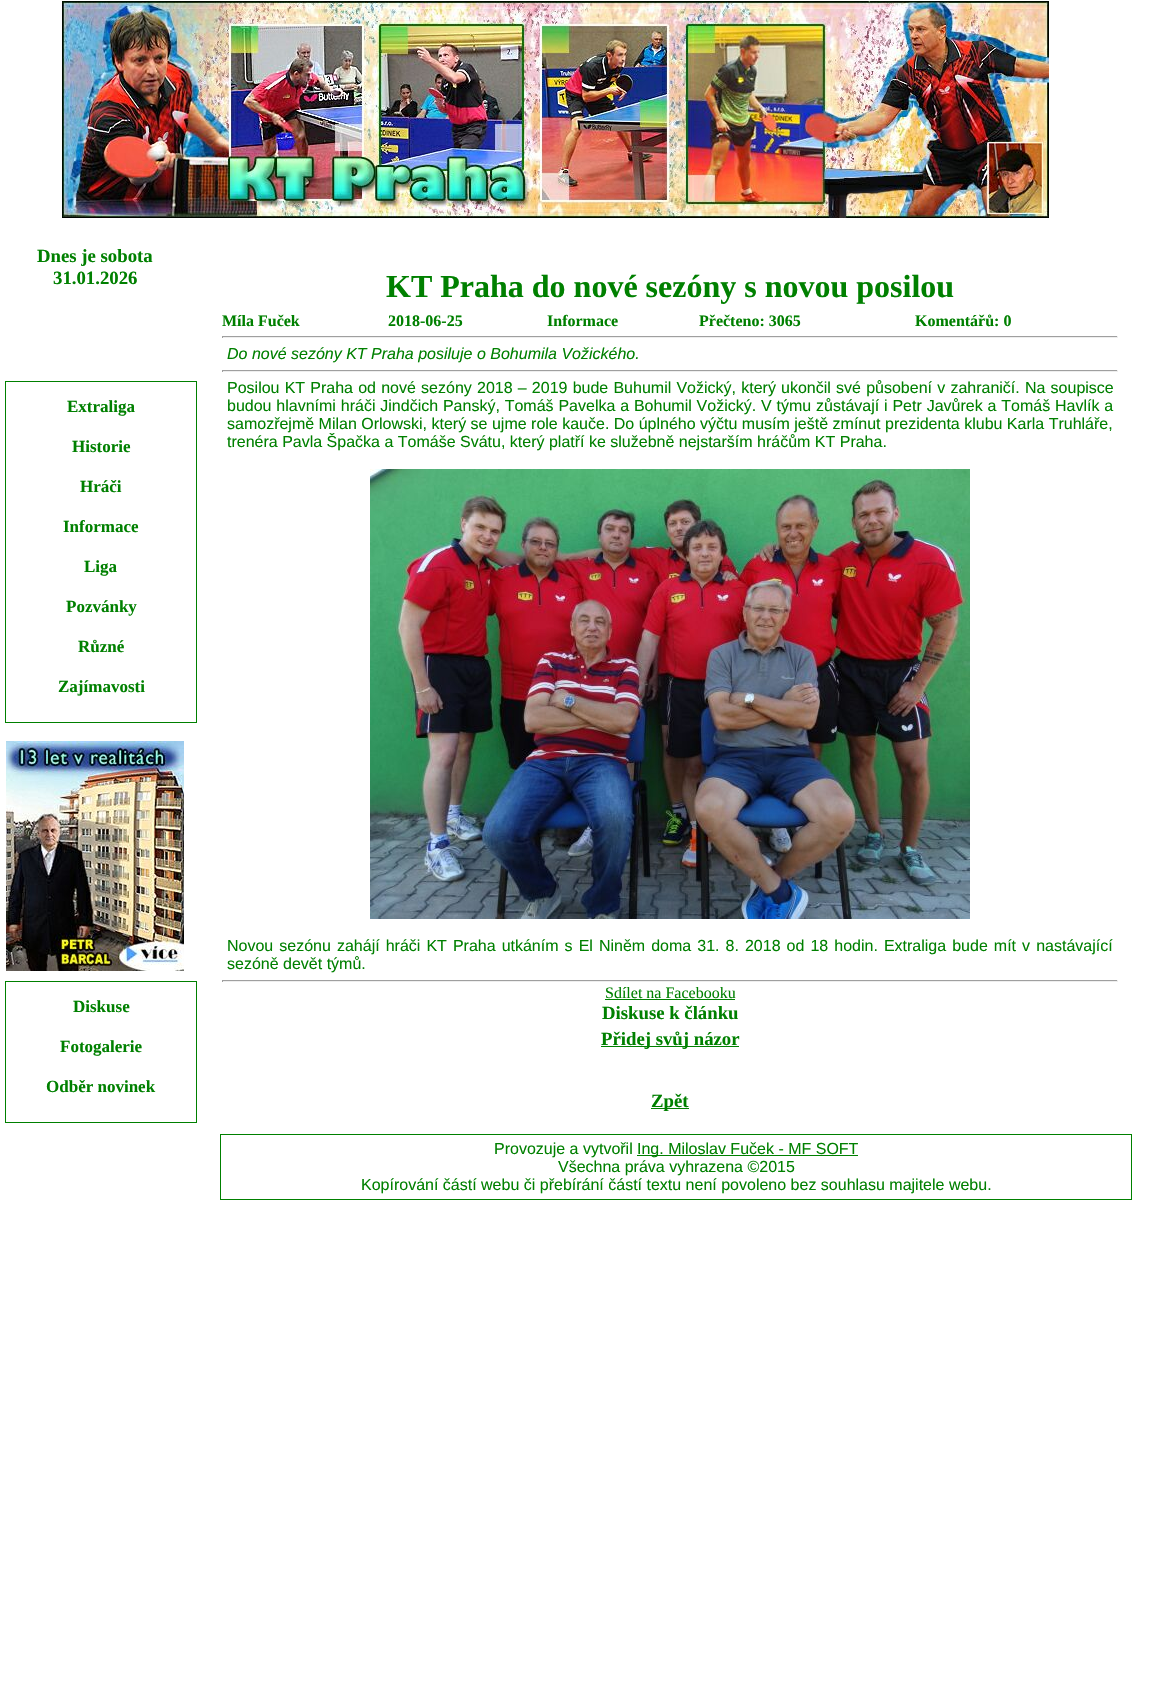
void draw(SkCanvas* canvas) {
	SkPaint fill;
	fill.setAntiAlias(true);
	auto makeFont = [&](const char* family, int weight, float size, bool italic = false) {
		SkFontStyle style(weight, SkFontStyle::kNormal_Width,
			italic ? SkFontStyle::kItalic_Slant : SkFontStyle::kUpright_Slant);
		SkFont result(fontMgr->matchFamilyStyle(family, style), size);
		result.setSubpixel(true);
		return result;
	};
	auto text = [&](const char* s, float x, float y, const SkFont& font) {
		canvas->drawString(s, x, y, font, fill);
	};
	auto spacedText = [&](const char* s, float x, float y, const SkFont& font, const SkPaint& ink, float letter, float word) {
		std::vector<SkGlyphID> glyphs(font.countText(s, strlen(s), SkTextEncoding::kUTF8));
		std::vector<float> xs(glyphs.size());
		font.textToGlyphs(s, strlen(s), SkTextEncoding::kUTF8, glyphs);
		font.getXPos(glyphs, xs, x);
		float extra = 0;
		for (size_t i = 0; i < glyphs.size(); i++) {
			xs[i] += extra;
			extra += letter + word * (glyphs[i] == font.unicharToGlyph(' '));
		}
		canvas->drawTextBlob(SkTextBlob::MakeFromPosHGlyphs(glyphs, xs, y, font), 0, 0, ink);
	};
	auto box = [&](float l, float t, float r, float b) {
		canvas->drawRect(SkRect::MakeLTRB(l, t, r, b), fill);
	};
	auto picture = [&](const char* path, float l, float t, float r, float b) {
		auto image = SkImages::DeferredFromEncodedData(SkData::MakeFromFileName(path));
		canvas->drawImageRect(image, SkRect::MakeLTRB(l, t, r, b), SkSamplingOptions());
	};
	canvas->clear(0xFFFFFFFF);
	picture("image0.png", 62, 1, 1049, 218);
	fill.setStyle(SkPaint::kStroke_Style);
	fill.setStrokeWidth(1);
	fill.setColor(0xFF008000);
	canvas->drawRect(SkRect::MakeLTRB(5.5f, 381.5f, 196.5f, 722.5f), fill);
	picture("image1.png", 6, 741, 184, 971);
	canvas->drawRect(SkRect::MakeLTRB(5.5f, 981.5f, 196.5f, 1122.5f), fill);
	fill.setStyle(SkPaint::kFill_Style);
	fill.setColor(0xFF9F9F9F);
	box(222, 336, 1118, 337);
	fill.setColor(0xFFEEEEEE);
	box(1117, 336, 1118, 338);
	box(222, 337, 1118, 338);
	fill.setColor(0xFF9F9F9F);
	box(222, 336, 223, 338);
	box(222, 370, 1118, 371);
	fill.setColor(0xFFEEEEEE);
	box(1117, 370, 1118, 372);
	box(222, 371, 1118, 372);
	fill.setColor(0xFF9F9F9F);
	box(222, 370, 223, 372);
	picture("image2.png", 370, 469, 970, 919);
	box(222, 980, 1118, 981);
	fill.setColor(0xFFEEEEEE);
	box(1117, 980, 1118, 982);
	box(222, 981, 1118, 982);
	fill.setColor(0xFF9F9F9F);
	box(222, 980, 223, 982);
	fill.setColor(0xFF008000);
	box(605, 999, 735, 1000);
	box(601, 1046, 739, 1047);
	box(651, 1108, 689, 1109);
	fill.setStyle(SkPaint::kStroke_Style);
	canvas->drawRect(SkRect::MakeLTRB(220.5f, 1134.5f, 1131.5f, 1199.5f), fill);
	fill.setStyle(SkPaint::kFill_Style);
	box(637, 1155, 858, 1156);
	auto font1 = makeFont("Liberation Serif", 700, 18.75f);
	text("Dnes je sobota", 37, 262, font1);
	text("31.01.2026", 53, 284, font1);
	auto font2 = makeFont("Liberation Serif", 700, 17);
	text("Extraliga", 67, 412, font2);
	text("Historie", 72, 452, font2);
	text("Hráči", 80, 492, font2);
	text("Informace", 63, 532, font2);
	text("Liga", 84, 572, font2);
	text("Pozvánky", 66, 612, font2);
	text("Různé", 78, 652, font2);
	text("Zajímavosti", 58, 692, font2);
	text("Diskuse", 73, 1012, font2);
	text("Fotogalerie", 60, 1052, font2);
	text("Odběr novinek", 46, 1092, font2);
	auto font3 = makeFont("Liberation Serif", 700, 32);
	text("KT Praha do nové sezóny s novou posilou", 386, 297, font3);
	auto font4 = makeFont("Liberation Serif", 700, 16);
	text("Míla Fuček", 222, 326, font4);
	text("2018-06-25", 388, 326, font4);
	text("Informace", 547, 326, font4);
	text("Přečteno: 3065", 699, 326, font4);
	text("Komentářů: 0", 915, 326, font4);
	auto font5 = makeFont("Liberation Sans", 400, 16, true);
	text("Do nové sezóny KT Praha posiluje o Bohumila Vožického.", 227, 359, font5);
	auto font6 = makeFont("Liberation Sans", 400, 16);
	spacedText("Posilou KT Praha od nové sezóny 2018 – 2019 bude Buhumil Vožický, který ukončil své působení v zahraničí. Na soupisce", 227, 393, font6, fill, 0, 0.75f);
	spacedText("budou hlavními hráči Jindčich Panský, Tomáš Pavelka a Bohumil Vožický. V týmu zůstávají i Petr Javůrek a Tomáš Havlík a", 227, 411, font6, fill, 0, 0.4f);
	text("samozřejmě Milan Orlowski, který se ujme role kauče. Do úplného výčtu musím ještě zmínut prezidenta klubu Karla Truhláře,", 227, 429, font6);
	text("trenéra Pavla Špačka a Tomáše Svátu, který platří ke služebně nejstarším hráčům KT Praha.", 227, 447, font6);
	spacedText("Novou sezónu zahájí hráči KT Praha utkáním s El Niněm doma 31. 8. 2018 od 18 hodin. Extraliga bude mít v nastávající", 227, 951, font6, fill, 0, 1.6f);
	text("sezóně devět týmů.", 227, 969, font6);
	auto font7 = makeFont("Liberation Serif", 400, 16);
	text("Sdílet na Facebooku", 605, 998, font7);
	text("Diskuse k článku", 602, 1019, font1);
	text("Přidej svůj názor", 601, 1045, font1);
	text("Zpět", 651, 1107, font1);
	text("Provozuje a vytvořil", 494, 1154, font6);
	text("Ing. Miloslav Fuček - MF SOFT", 637, 1154, font6);
	text("Všechna práva vyhrazena ©2015", 558, 1172, font6);
	text("Kopírování částí webu či přebírání částí textu není povoleno bez souhlasu majitele webu.", 361, 1190, font6);
}
